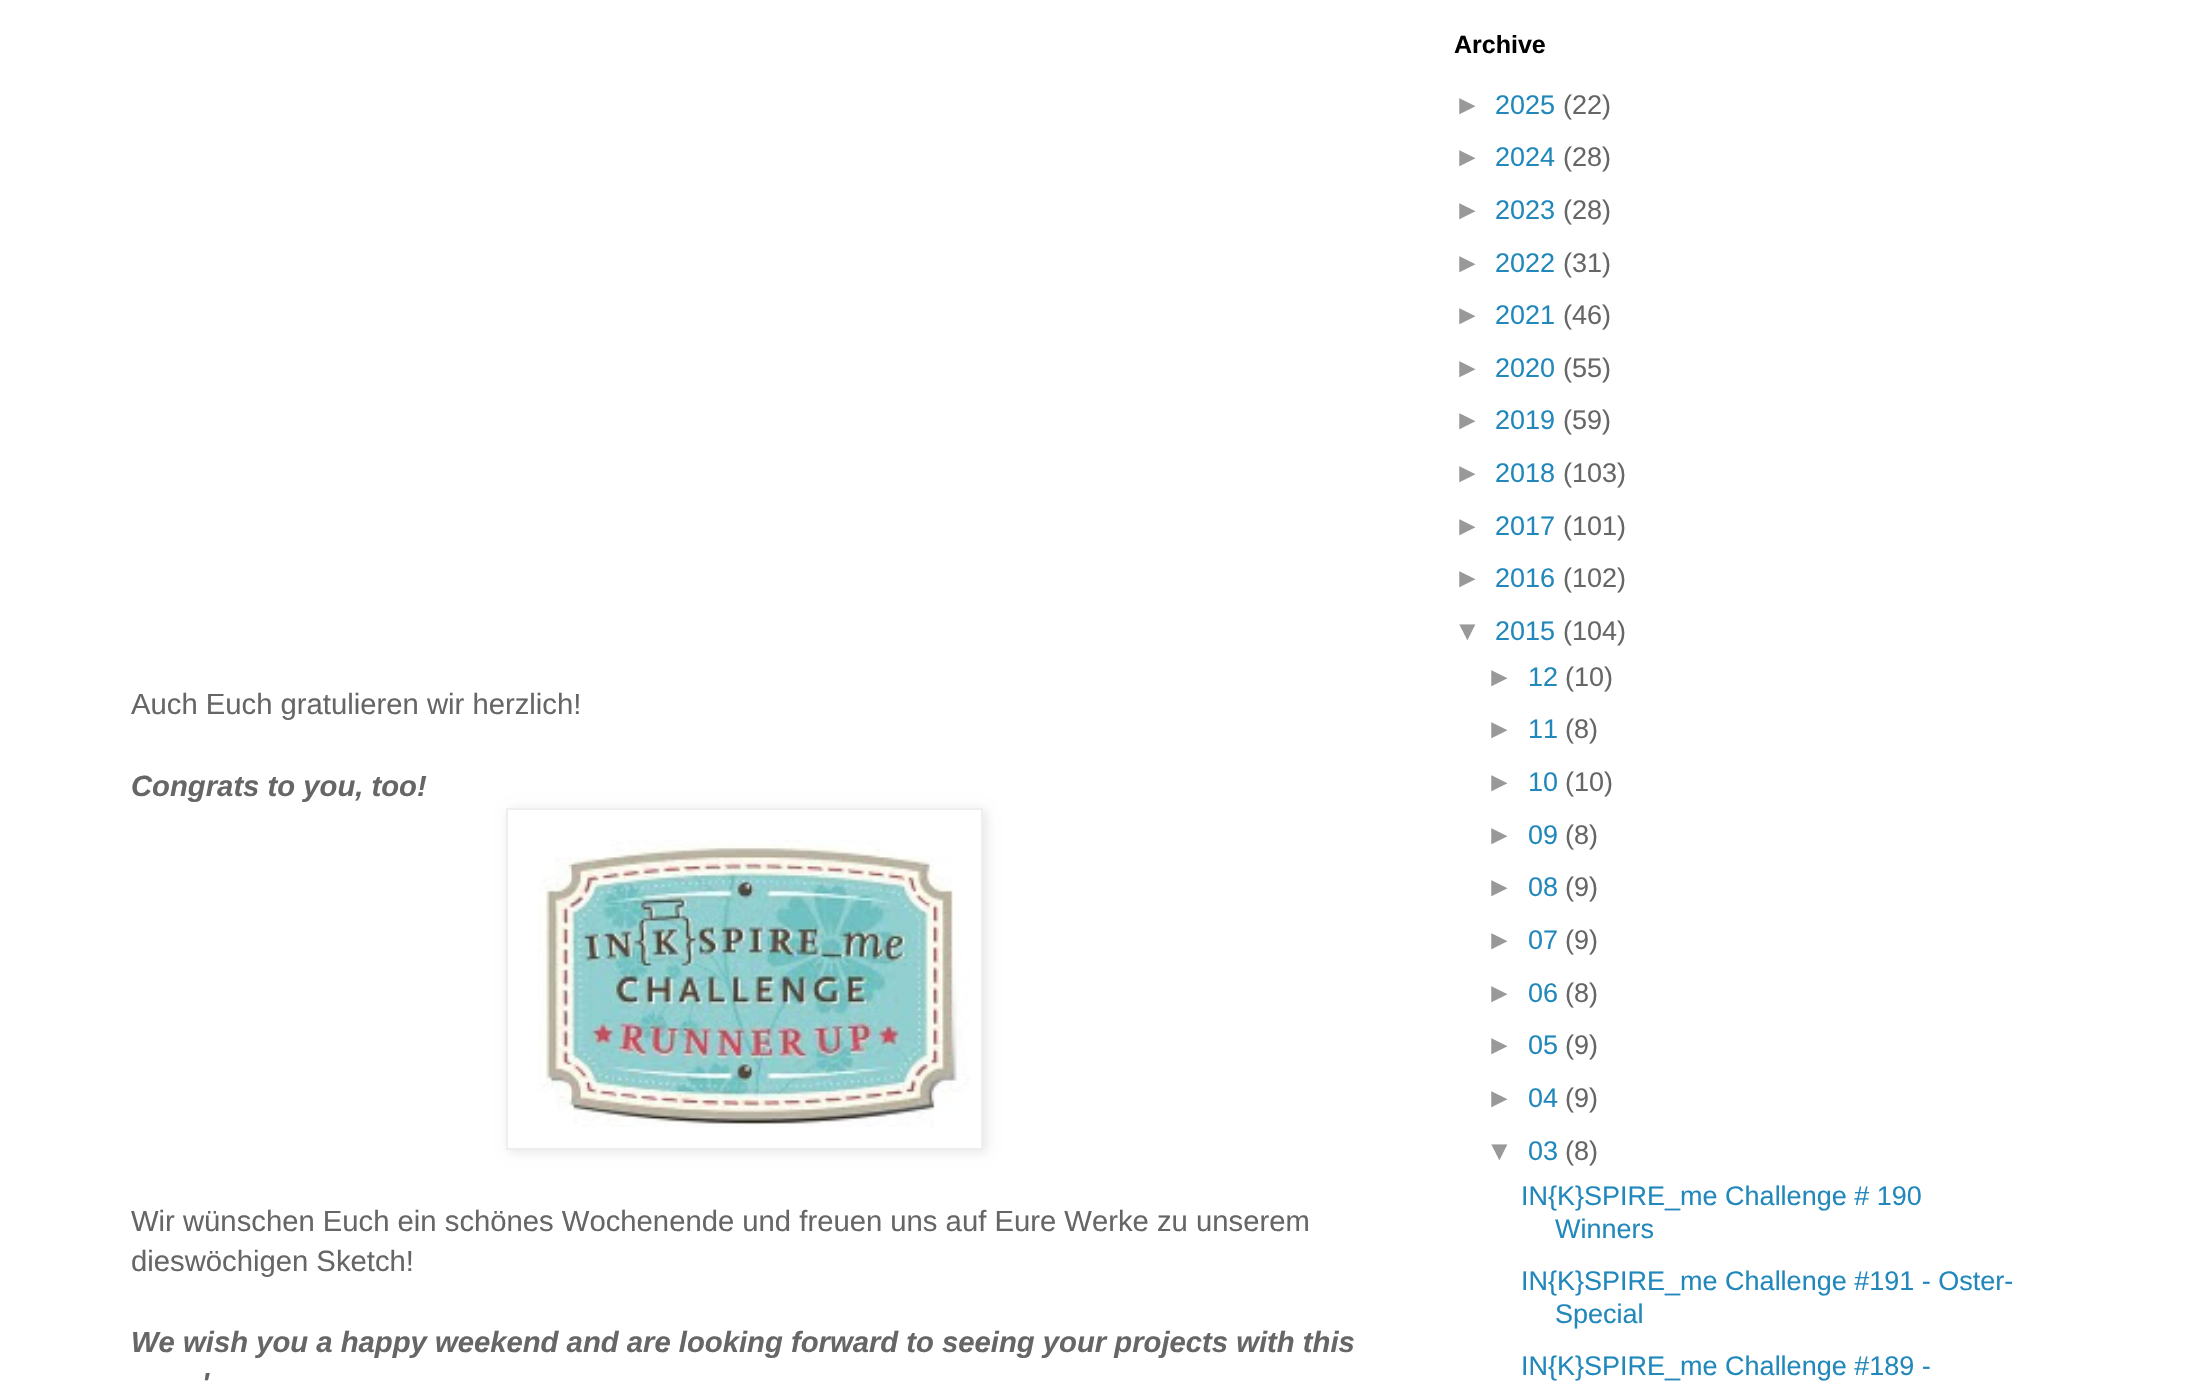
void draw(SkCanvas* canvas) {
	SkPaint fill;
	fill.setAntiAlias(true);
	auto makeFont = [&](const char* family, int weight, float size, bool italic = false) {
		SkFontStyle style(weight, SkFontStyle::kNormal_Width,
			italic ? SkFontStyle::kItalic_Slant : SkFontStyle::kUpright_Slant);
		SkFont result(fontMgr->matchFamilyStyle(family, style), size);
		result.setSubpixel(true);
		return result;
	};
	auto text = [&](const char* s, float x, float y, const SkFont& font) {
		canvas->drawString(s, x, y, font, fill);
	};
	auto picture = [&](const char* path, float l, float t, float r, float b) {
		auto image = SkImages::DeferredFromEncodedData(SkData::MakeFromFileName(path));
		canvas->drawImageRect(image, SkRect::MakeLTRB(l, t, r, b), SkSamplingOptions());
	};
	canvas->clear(0xFFFFFFFF);
	fill.setColor(0x1A000000);
	fill.setMaskFilter(SkMaskFilter::MakeBlur(kNormal_SkBlurStyle, 5.5f));
	canvas->drawRect(SkRect::MakeLTRB(509, 810, 986, 1152), fill);
	fill.setMaskFilter(nullptr);
	fill.setColor(0xFFFFFFFF);
	canvas->drawRect(SkRect::MakeLTRB(507, 809, 982, 1149), fill);
	fill.setStyle(SkPaint::kStroke_Style);
	fill.setStrokeWidth(2);
	fill.setColor(0xFFEEEEEE);
	canvas->drawRect(SkRect::MakeLTRB(507, 809, 982, 1149), fill);
	picture("image0.png", 538, 840, 970, 1127);
	auto font1 = makeFont("Liberation Sans", 400, 29.25f);
	fill.setStyle(SkPaint::kFill_Style);
	fill.setColor(0xFF666666);
	text("Auch Euch gratulieren wir herzlich!", 131, 714, font1);
	auto font2 = makeFont("Liberation Sans", 700, 29.25f, true);
	text("Congrats to you, too!", 131, 796, font2);
	text("Wir wünschen Euch ein schönes Wochenende und freuen uns auf Eure Werke zu unserem", 131, 1231, font1);
	text("dieswöchigen Sketch!", 131, 1271, font1);
	text("We wish you a happy weekend and are looking forward to seeing your projects with this", 131, 1352, font2);
	text("'", 202, 1393, font2);
	auto font3 = makeFont("Liberation Sans", 700, 25);
	fill.setColor(0xFF000000);
	text("Archive", 1454, 53, font3);
	auto font4 = makeFont("Liberation Sans", 400, 27);
	fill.setColor(0xFF999999);
	text("►", 1454, 114, font4);
	fill.setColor(0xFF2288BB);
	text("2025", 1495, 114, font4);
	fill.setColor(0xFF666666);
	text("(22)", 1563, 114, font4);
	fill.setColor(0xFF999999);
	text("►", 1454, 166, font4);
	fill.setColor(0xFF2288BB);
	text("2024", 1495, 166, font4);
	fill.setColor(0xFF666666);
	text("(28)", 1563, 166, font4);
	fill.setColor(0xFF999999);
	text("►", 1454, 219, font4);
	fill.setColor(0xFF2288BB);
	text("2023", 1495, 219, font4);
	fill.setColor(0xFF666666);
	text("(28)", 1563, 219, font4);
	fill.setColor(0xFF999999);
	text("►", 1454, 272, font4);
	fill.setColor(0xFF2288BB);
	text("2022", 1495, 272, font4);
	fill.setColor(0xFF666666);
	text("(31)", 1563, 272, font4);
	fill.setColor(0xFF999999);
	text("►", 1454, 324, font4);
	fill.setColor(0xFF2288BB);
	text("2021", 1495, 324, font4);
	fill.setColor(0xFF666666);
	text("(46)", 1563, 324, font4);
	fill.setColor(0xFF999999);
	text("►", 1454, 377, font4);
	fill.setColor(0xFF2288BB);
	text("2020", 1495, 377, font4);
	fill.setColor(0xFF666666);
	text("(55)", 1563, 377, font4);
	fill.setColor(0xFF999999);
	text("►", 1454, 429, font4);
	fill.setColor(0xFF2288BB);
	text("2019", 1495, 429, font4);
	fill.setColor(0xFF666666);
	text("(59)", 1563, 429, font4);
	fill.setColor(0xFF999999);
	text("►", 1454, 482, font4);
	fill.setColor(0xFF2288BB);
	text("2018", 1495, 482, font4);
	fill.setColor(0xFF666666);
	text("(103)", 1563, 482, font4);
	fill.setColor(0xFF999999);
	text("►", 1454, 535, font4);
	fill.setColor(0xFF2288BB);
	text("2017", 1495, 535, font4);
	fill.setColor(0xFF666666);
	text("(101)", 1563, 535, font4);
	fill.setColor(0xFF999999);
	text("►", 1454, 587, font4);
	fill.setColor(0xFF2288BB);
	text("2016", 1495, 587, font4);
	fill.setColor(0xFF666666);
	text("(102)", 1563, 587, font4);
	fill.setColor(0xFF999999);
	text("▼", 1454, 640, font4);
	fill.setColor(0xFF2288BB);
	text("2015", 1495, 640, font4);
	fill.setColor(0xFF666666);
	text("(104)", 1563, 640, font4);
	fill.setColor(0xFF999999);
	text("►", 1486, 686, font4);
	fill.setColor(0xFF2288BB);
	text("12", 1528, 686, font4);
	fill.setColor(0xFF666666);
	text("(10)", 1565, 686, font4);
	fill.setColor(0xFF999999);
	text("►", 1486, 738, font4);
	fill.setColor(0xFF2288BB);
	text("11", 1528, 738, font4);
	fill.setColor(0xFF666666);
	text("(8)", 1565, 738, font4);
	fill.setColor(0xFF999999);
	text("►", 1486, 791, font4);
	fill.setColor(0xFF2288BB);
	text("10", 1528, 791, font4);
	fill.setColor(0xFF666666);
	text("(10)", 1565, 791, font4);
	fill.setColor(0xFF999999);
	text("►", 1486, 844, font4);
	fill.setColor(0xFF2288BB);
	text("09", 1528, 844, font4);
	fill.setColor(0xFF666666);
	text("(8)", 1565, 844, font4);
	fill.setColor(0xFF999999);
	text("►", 1486, 896, font4);
	fill.setColor(0xFF2288BB);
	text("08", 1528, 896, font4);
	fill.setColor(0xFF666666);
	text("(9)", 1565, 896, font4);
	fill.setColor(0xFF999999);
	text("►", 1486, 949, font4);
	fill.setColor(0xFF2288BB);
	text("07", 1528, 949, font4);
	fill.setColor(0xFF666666);
	text("(9)", 1565, 949, font4);
	fill.setColor(0xFF999999);
	text("►", 1486, 1002, font4);
	fill.setColor(0xFF2288BB);
	text("06", 1528, 1002, font4);
	fill.setColor(0xFF666666);
	text("(8)", 1565, 1002, font4);
	fill.setColor(0xFF999999);
	text("►", 1486, 1054, font4);
	fill.setColor(0xFF2288BB);
	text("05", 1528, 1054, font4);
	fill.setColor(0xFF666666);
	text("(9)", 1565, 1054, font4);
	fill.setColor(0xFF999999);
	text("►", 1486, 1107, font4);
	fill.setColor(0xFF2288BB);
	text("04", 1528, 1107, font4);
	fill.setColor(0xFF666666);
	text("(9)", 1565, 1107, font4);
	fill.setColor(0xFF999999);
	text("▼", 1486, 1160, font4);
	fill.setColor(0xFF2288BB);
	text("03", 1528, 1160, font4);
	fill.setColor(0xFF666666);
	text("(8)", 1565, 1160, font4);
	fill.setColor(0xFF2288BB);
	text("IN{K}SPIRE_me Challenge # 190", 1521, 1205, font4);
	text("Winners", 1555, 1238, font4);
	text("IN{K}SPIRE_me Challenge #191 - Oster-", 1521, 1290, font4);
	text("Special", 1555, 1323, font4);
	text("IN{K}SPIRE_me Challenge #189 -", 1521, 1375, font4);
}
